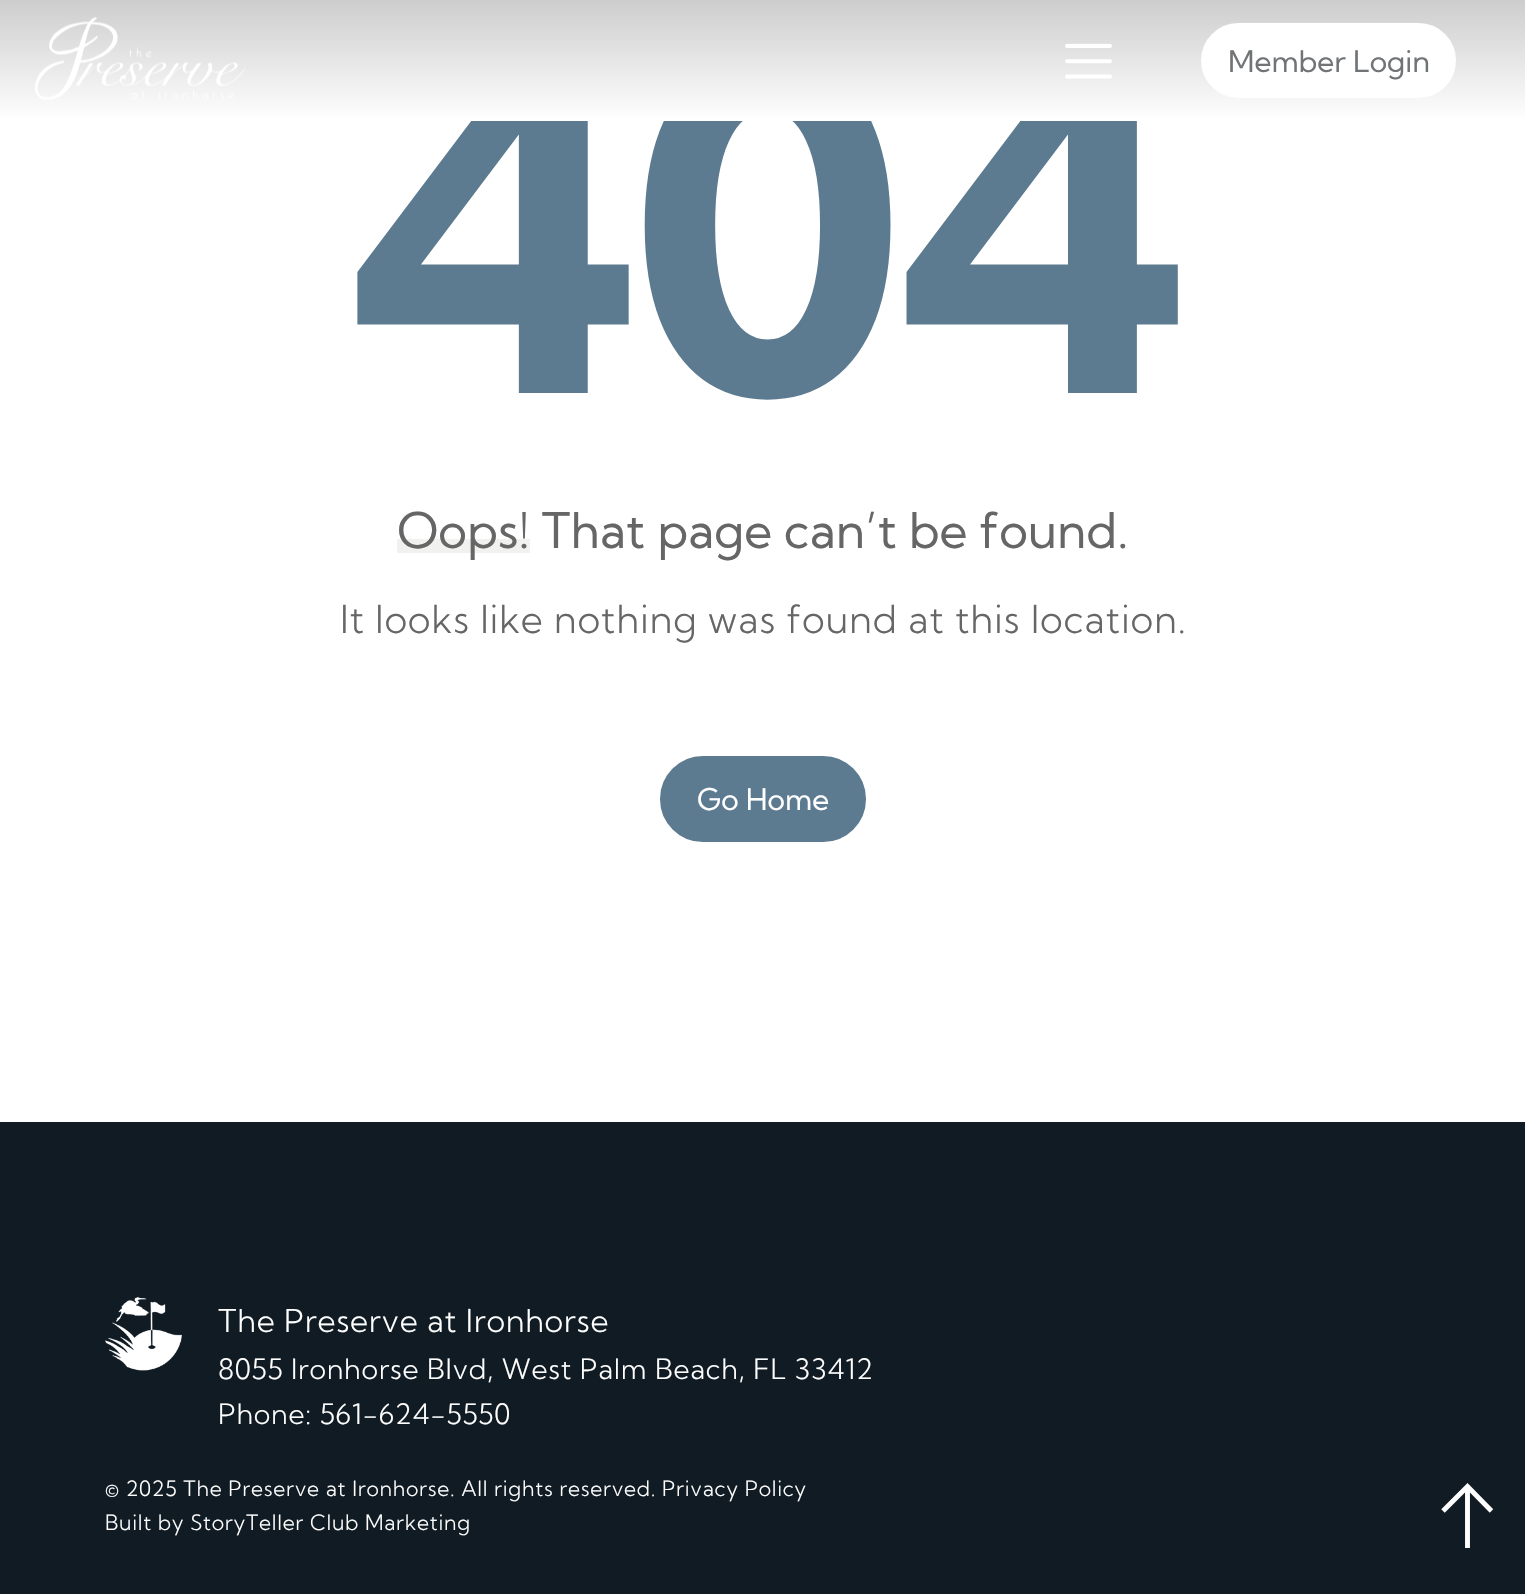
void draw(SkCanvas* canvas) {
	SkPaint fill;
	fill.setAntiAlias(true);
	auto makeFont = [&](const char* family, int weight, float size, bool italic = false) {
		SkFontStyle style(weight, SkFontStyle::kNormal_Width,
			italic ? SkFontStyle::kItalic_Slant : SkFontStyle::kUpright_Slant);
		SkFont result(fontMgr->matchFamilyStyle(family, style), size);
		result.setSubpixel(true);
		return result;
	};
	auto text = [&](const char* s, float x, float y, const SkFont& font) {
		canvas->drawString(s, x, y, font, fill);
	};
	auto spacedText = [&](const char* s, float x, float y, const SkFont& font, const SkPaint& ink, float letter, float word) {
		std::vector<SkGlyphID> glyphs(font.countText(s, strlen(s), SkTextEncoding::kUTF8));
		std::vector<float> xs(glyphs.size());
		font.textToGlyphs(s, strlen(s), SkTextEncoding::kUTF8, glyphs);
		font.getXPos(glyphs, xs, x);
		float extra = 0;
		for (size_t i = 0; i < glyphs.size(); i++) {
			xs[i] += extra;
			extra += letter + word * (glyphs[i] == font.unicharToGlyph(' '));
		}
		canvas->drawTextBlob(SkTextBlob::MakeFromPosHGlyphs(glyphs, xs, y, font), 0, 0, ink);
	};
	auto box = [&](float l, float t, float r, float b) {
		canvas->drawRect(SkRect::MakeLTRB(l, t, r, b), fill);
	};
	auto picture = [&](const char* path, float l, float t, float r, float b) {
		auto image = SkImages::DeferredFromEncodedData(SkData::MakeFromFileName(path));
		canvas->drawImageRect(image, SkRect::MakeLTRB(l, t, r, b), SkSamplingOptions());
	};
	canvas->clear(0xFFFFFFFF);
	fill.setColor(0xFFF1F1F0);
	box(397, 539, 530, 553);
	fill.setColor(0xFF5C7A90);
	canvas->drawRoundRect(SkRect::MakeLTRB(661, 757, 865, 841), 42, 42, fill);
	fill.setStyle(SkPaint::kStroke_Style);
	fill.setStrokeWidth(2);
	canvas->drawRoundRect(SkRect::MakeLTRB(661, 757, 865, 841), 42, 42, fill);
	fill.setStyle(SkPaint::kFill_Style);
	fill.setColor(0xFF111B23);
	box(0, 1122, 1525, 1594);
	picture("image2.png", 105, 1297, 182, 1371);
	canvas->save();
	canvas->clipPath(SkPathBuilder().moveTo(1441, 1548).lineTo(1441, 1483).lineTo(1493.5f, 1483).lineTo(1493.5f, 1548).close().detach(), true);
	fill.setStyle(SkPaint::kStroke_Style);
	fill.setStrokeWidth(4.9f);
	fill.setColor(0xFFFFFFFF);
	canvas->drawPath(SkPathBuilder().moveTo(1467.5f, 1486.5f).lineTo(1467.5f, 1548).moveTo(1491.5f, 1511).lineTo(1467.5f, 1486.5f).lineTo(1443, 1511).detach(), fill);
	canvas->restore();
	auto font1 = makeFont("Kumbh Sans", 700, 458);
	fill.setStyle(SkPaint::kFill_Style);
	fill.setColor(0xFF5C7A90);
	spacedText("404", 348, 393, font1, fill, -9, 0);
	auto font2 = makeFont("Kumbh Sans", 400, 49);
	fill.setColor(0xFF666666);
	text("Oops! That page can’t be found.", 397, 548, font2);
	auto font3 = makeFont("Kumbh Sans", 300, 38.5f);
	spacedText("It looks like nothing was found at this location.", 340, 633, font3, fill, 0.7f, 0);
	auto font4 = makeFont("Kumbh Sans", 400, 29.75f);
	fill.setColor(0xFFFFFFFF);
	text("Go Home", 697, 810, font4);
	{
		const SkColor colors[] = {0xFFCDCDCD, 0xFFFFFFFF};
		const float stops[] = {0, 1};
		const SkPoint ends[] = {{763, 0}, {763, 121}};
		fill.setShader(SkGradientShader::MakeLinear(ends, colors, stops, 2, SkTileMode::kClamp));
		fill.setAlpha(255);
	}
	box(0, 0, 1525, 121);
	picture("image0.png", 35, 17, 245, 100);
	picture("image1.png", 1065, 43, 1112, 79);
	fill.setShader(nullptr);
	fill.setColor(0xFFFFFFFF);
	canvas->drawRoundRect(SkRect::MakeLTRB(1202, 24, 1455, 97), 36.5f, 36.5f, fill);
	fill.setStyle(SkPaint::kStroke_Style);
	fill.setStrokeWidth(2);
	canvas->drawRoundRect(SkRect::MakeLTRB(1202, 24, 1455, 97), 36.5f, 36.5f, fill);
	fill.setStyle(SkPaint::kFill_Style);
	fill.setColor(0xFF717477);
	text("Member Login", 1228, 72, font4);
	auto font5 = makeFont("Kumbh Sans", 300, 31.5f);
	fill.setColor(0xFFFFFFFF);
	spacedText("The Preserve at Ironhorse", 218, 1332, font5, fill, 0.7f, 0);
	auto font6 = makeFont("Kumbh Sans", 300, 28);
	spacedText("8055 Ironhorse Blvd, West Palm Beach, FL 33412", 218, 1379, font6, fill, 0.7f, 0);
	spacedText("Phone: 561-624-5550", 218, 1424, font6, fill, 0.7f, 0);
	auto font7 = makeFont("Kumbh Sans", 300, 21);
	spacedText("© 2025 The Preserve at Ironhorse. All rights reserved. Privacy Policy", 105, 1496, font7, fill, 0.7f, 0);
	spacedText("Built by StoryTeller Club Marketing", 105, 1530, font7, fill, 0.7f, 0);
}
